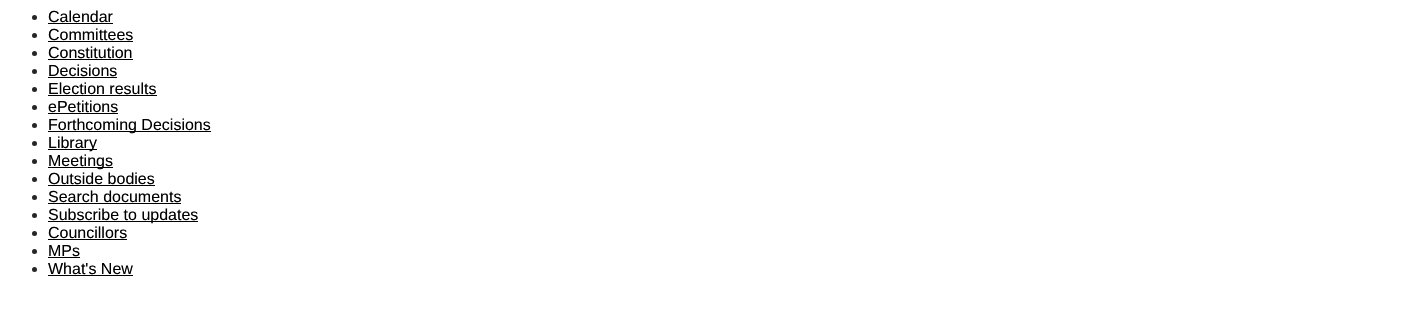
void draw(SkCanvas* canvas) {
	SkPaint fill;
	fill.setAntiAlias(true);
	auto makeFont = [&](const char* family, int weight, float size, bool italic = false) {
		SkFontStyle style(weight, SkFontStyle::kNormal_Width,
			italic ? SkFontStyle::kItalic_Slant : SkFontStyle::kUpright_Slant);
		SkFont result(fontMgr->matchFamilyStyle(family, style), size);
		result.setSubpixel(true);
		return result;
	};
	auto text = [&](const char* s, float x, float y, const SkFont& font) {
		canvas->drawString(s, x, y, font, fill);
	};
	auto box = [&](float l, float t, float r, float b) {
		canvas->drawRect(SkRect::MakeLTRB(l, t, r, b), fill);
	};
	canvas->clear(0xFFFFFFFF);
	fill.setColor(0xFF262626);
	canvas->drawCircle(34.5f, 17.5f, 2.5f, fill);
	fill.setColor(0xFF000000);
	box(48, 23, 113, 24);
	fill.setColor(0xFF262626);
	canvas->drawCircle(34.5f, 35.5f, 2.5f, fill);
	fill.setColor(0xFF000000);
	box(48, 41, 133, 42);
	fill.setColor(0xFF262626);
	canvas->drawCircle(34.5f, 53.5f, 2.5f, fill);
	fill.setColor(0xFF000000);
	box(48, 59, 133, 60);
	fill.setColor(0xFF262626);
	canvas->drawCircle(34.5f, 71.5f, 2.5f, fill);
	fill.setColor(0xFF000000);
	box(48, 77, 117, 78);
	fill.setColor(0xFF262626);
	canvas->drawCircle(34.5f, 89.5f, 2.5f, fill);
	fill.setColor(0xFF000000);
	box(48, 95, 157, 96);
	fill.setColor(0xFF262626);
	canvas->drawCircle(34.5f, 107.5f, 2.5f, fill);
	fill.setColor(0xFF000000);
	box(48, 113, 118, 114);
	fill.setColor(0xFF262626);
	canvas->drawCircle(34.5f, 125.5f, 2.5f, fill);
	fill.setColor(0xFF000000);
	box(48, 131, 211, 132);
	fill.setColor(0xFF262626);
	canvas->drawCircle(34.5f, 143.5f, 2.5f, fill);
	fill.setColor(0xFF000000);
	box(48, 149, 97, 150);
	fill.setColor(0xFF262626);
	canvas->drawCircle(34.5f, 161.5f, 2.5f, fill);
	fill.setColor(0xFF000000);
	box(48, 167, 113, 168);
	fill.setColor(0xFF262626);
	canvas->drawCircle(34.5f, 179.5f, 2.5f, fill);
	fill.setColor(0xFF000000);
	box(48, 185, 155, 186);
	fill.setColor(0xFF262626);
	canvas->drawCircle(34.5f, 197.5f, 2.5f, fill);
	fill.setColor(0xFF000000);
	box(48, 203, 181, 204);
	fill.setColor(0xFF262626);
	canvas->drawCircle(34.5f, 215.5f, 2.5f, fill);
	fill.setColor(0xFF000000);
	box(48, 221, 198, 222);
	fill.setColor(0xFF262626);
	canvas->drawCircle(34.5f, 233.5f, 2.5f, fill);
	fill.setColor(0xFF000000);
	box(48, 239, 127, 240);
	fill.setColor(0xFF262626);
	canvas->drawCircle(34.5f, 251.5f, 2.5f, fill);
	fill.setColor(0xFF000000);
	box(48, 257, 80, 258);
	fill.setColor(0xFF262626);
	canvas->drawCircle(34.5f, 269.5f, 2.5f, fill);
	fill.setColor(0xFF000000);
	box(48, 275, 133, 276);
	auto font1 = makeFont("Liberation Sans", 400, 16);
	text("Calendar", 48, 22, font1);
	text("Committees", 48, 40, font1);
	text("Constitution", 48, 58, font1);
	text("Decisions", 48, 76, font1);
	text("Election results", 48, 94, font1);
	text("ePetitions", 48, 112, font1);
	text("Forthcoming Decisions", 48, 130, font1);
	text("Library", 48, 148, font1);
	text("Meetings", 48, 166, font1);
	text("Outside bodies", 48, 184, font1);
	text("Search documents", 48, 202, font1);
	text("Subscribe to updates", 48, 220, font1);
	text("Councillors", 48, 238, font1);
	text("MPs", 48, 256, font1);
	text("What's New", 48, 274, font1);
}
